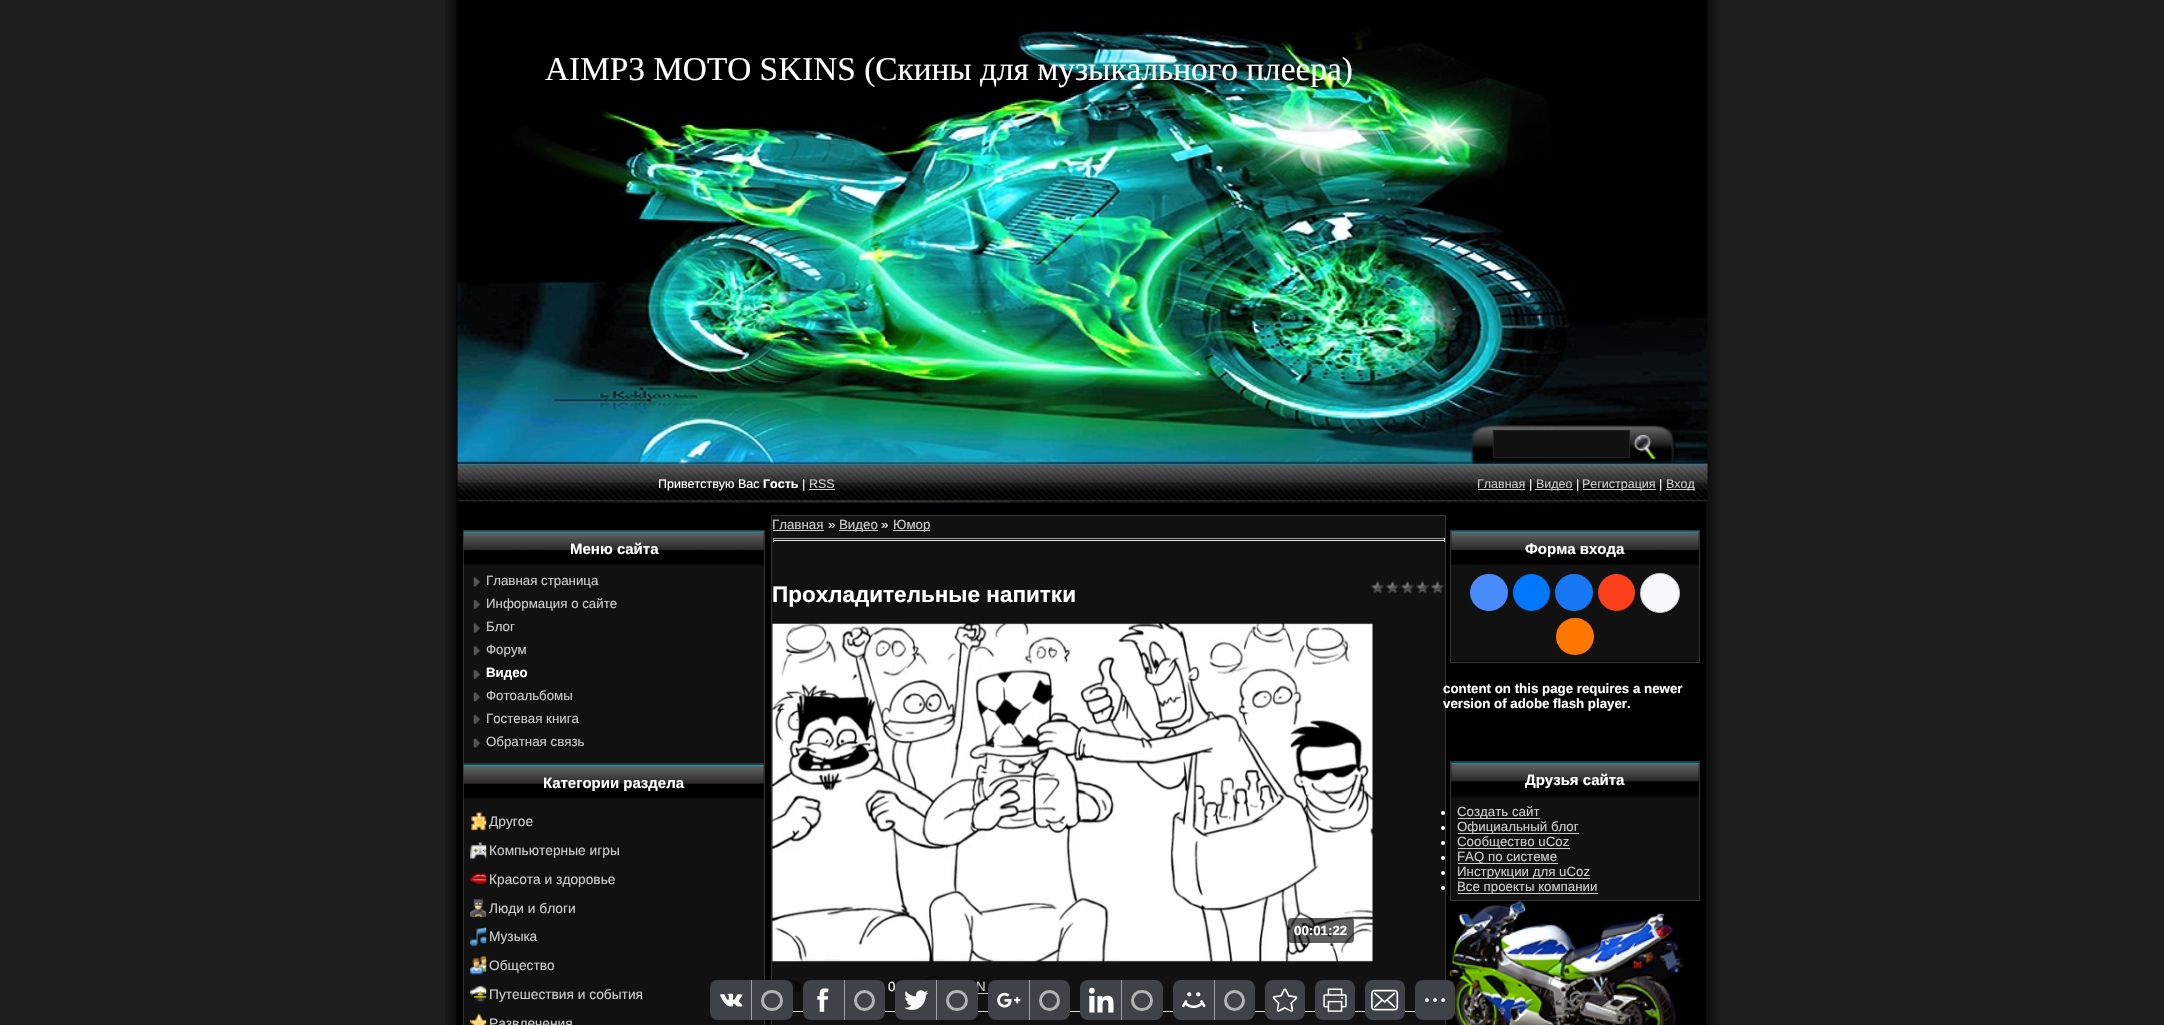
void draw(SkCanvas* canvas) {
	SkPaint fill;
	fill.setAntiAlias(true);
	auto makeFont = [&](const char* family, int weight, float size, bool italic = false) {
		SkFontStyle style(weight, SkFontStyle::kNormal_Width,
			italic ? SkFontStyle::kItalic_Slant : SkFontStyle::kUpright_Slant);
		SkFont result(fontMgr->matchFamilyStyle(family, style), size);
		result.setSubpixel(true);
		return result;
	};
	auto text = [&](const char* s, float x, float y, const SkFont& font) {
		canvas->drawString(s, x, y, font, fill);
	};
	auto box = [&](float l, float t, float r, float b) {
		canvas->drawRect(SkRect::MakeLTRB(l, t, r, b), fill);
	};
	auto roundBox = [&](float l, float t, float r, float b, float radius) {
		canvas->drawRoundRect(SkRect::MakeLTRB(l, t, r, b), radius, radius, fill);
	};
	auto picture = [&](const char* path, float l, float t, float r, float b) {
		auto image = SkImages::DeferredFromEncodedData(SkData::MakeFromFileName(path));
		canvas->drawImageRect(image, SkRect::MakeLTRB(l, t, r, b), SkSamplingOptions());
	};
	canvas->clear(0xFF1E1E1E);
	picture("image0.png", 445, 0, 1720, 1025);
	picture("image1.png", 457, 0, 1708, 503);
	fill.setColor(0xFF111111);
	canvas->drawRect(SkRect::MakeLTRB(1493.5f, 430.5f, 1629.5f, 457.5f), fill);
	fill.setStyle(SkPaint::kStroke_Style);
	fill.setStrokeWidth(1);
	fill.setColor(0xFF222222);
	canvas->drawRect(SkRect::MakeLTRB(1493.5f, 430.5f, 1629.5f, 457.5f), fill);
	picture("image2.png", 1633, 435, 1657, 459);
	fill.setStyle(SkPaint::kFill_Style);
	fill.setColor(0xFFCCCCCC);
	box(809, 489, 835, 490);
	box(1478, 489, 1525, 490);
	box(1535, 489, 1573, 490);
	box(1583, 489, 1656, 490);
	box(1666, 489, 1695, 490);
	fill.setStyle(SkPaint::kStroke_Style);
	fill.setColor(0xFF333333);
	canvas->drawRect(SkRect::MakeLTRB(463.5f, 530.5f, 764.5f, 763.5f), fill);
	picture("image3.png", 463, 531, 764, 567);
	fill.setStyle(SkPaint::kFill_Style);
	fill.setColor(0xFF111111);
	box(464, 566, 764, 763);
	picture("image4.png", 473, 577, 481, 587);
	picture("image5.png", 473, 600, 481, 609);
	picture("image6.png", 473, 623, 481, 633);
	picture("image7.png", 473, 646, 481, 656);
	picture("image5.png", 473, 670, 481, 679);
	picture("image4.png", 473, 692, 481, 702);
	picture("image5.png", 473, 715, 481, 724);
	picture("image6.png", 473, 738, 481, 748);
	fill.setStyle(SkPaint::kStroke_Style);
	fill.setColor(0xFF333333);
	canvas->drawRect(SkRect::MakeLTRB(463.5f, 764.5f, 764.5f, 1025.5f), fill);
	picture("image8.png", 463, 765, 764, 800);
	fill.setStyle(SkPaint::kFill_Style);
	fill.setColor(0xFF111111);
	box(464, 800, 764, 1025);
	picture("image9.png", 471, 812, 487, 831);
	picture("image10.png", 470, 842, 487, 859);
	picture("image11.png", 470, 873, 487, 884);
	picture("image12.png", 470, 898, 487, 917);
	picture("image13.png", 470, 927, 487, 946);
	picture("image14.png", 470, 956, 487, 975);
	picture("image15.png", 470, 986, 487, 1002);
	picture("image16.png", 470, 1013, 487, 1025);
	canvas->drawRect(SkRect::MakeLTRB(771.5f, 515.5f, 1445.5f, 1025.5f), fill);
	fill.setStyle(SkPaint::kStroke_Style);
	fill.setColor(0xFF333333);
	canvas->drawRect(SkRect::MakeLTRB(771.5f, 515.5f, 1445.5f, 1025.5f), fill);
	fill.setStyle(SkPaint::kFill_Style);
	fill.setColor(0xFFCCCCCC);
	box(773, 530, 824, 531);
	box(839, 530, 878, 531);
	box(893, 530, 930, 531);
	fill.setColor(0xFF9F9F9F);
	box(773, 538, 1445, 539);
	fill.setColor(0xFFEEEEEE);
	box(1444, 538, 1445, 542);
	box(773, 540, 1445, 541);
	fill.setColor(0xFF9F9F9F);
	box(773, 538, 774, 542);
	picture("image17.png", 1371, 581, 1444, 594);
	picture("image18.png", 772, 623, 1373, 962);
	fill.setColor(0xA1000000);
	roundBox(1288, 918, 1354, 943, 4);
	picture("image19.png", 785, 980, 804, 992);
	picture("image20.png", 925, 976, 942, 980);
	fill.setColor(0xFFCCCCCC);
	box(978, 993, 988, 994);
	fill.setColor(0xFFD6D6D6);
	box(793, 1011, 1415, 1012);
	fill.setStyle(SkPaint::kStroke_Style);
	fill.setColor(0xFF333333);
	canvas->drawRect(SkRect::MakeLTRB(1450.5f, 530.5f, 1699.5f, 662.5f), fill);
	picture("image21.png", 1451, 531, 1699, 566);
	fill.setStyle(SkPaint::kFill_Style);
	fill.setColor(0xFF111111);
	box(1451, 566, 1699, 661);
	fill.setColor(0xFF498BFA);
	roundBox(1470, 574, 1508, 611, 18.5f);
	fill.setColor(0xFF0077FF);
	canvas->drawCircle(1531.5f, 592.5f, 18.5f, fill);
	fill.setColor(0xFF1877F2);
	roundBox(1555, 574, 1593, 611, 18.5f);
	fill.setColor(0xFFFC3F1D);
	canvas->drawCircle(1616.5f, 592.5f, 18.5f, fill);
	fill.setColor(0xFFF8F8FC);
	canvas->drawCircle(1660, 593, 19.5f, fill);
	fill.setStyle(SkPaint::kStroke_Style);
	fill.setColor(0xFFC4C4C4);
	canvas->drawCircle(1660, 593, 19.5f, fill);
	fill.setStyle(SkPaint::kFill_Style);
	fill.setColor(0xFFFF7700);
	roundBox(1556, 618, 1594, 655, 18.5f);
	fill.setStyle(SkPaint::kStroke_Style);
	fill.setColor(0xFF333333);
	canvas->drawRect(SkRect::MakeLTRB(1450.5f, 761.5f, 1699.5f, 900.5f), fill);
	picture("image22.png", 1451, 762, 1699, 798);
	fill.setStyle(SkPaint::kFill_Style);
	fill.setColor(0xFF111111);
	box(1451, 798, 1699, 900);
	fill.setColor(0xFFFFFFFF);
	canvas->drawCircle(1443, 813, 2, fill);
	fill.setColor(0xFFCCCCCC);
	box(1458, 818, 1540, 819);
	fill.setColor(0xFFFFFFFF);
	canvas->drawCircle(1443, 828, 2, fill);
	fill.setColor(0xFFCCCCCC);
	box(1458, 833, 1579, 834);
	fill.setColor(0xFFFFFFFF);
	canvas->drawCircle(1443, 843, 2, fill);
	fill.setColor(0xFFCCCCCC);
	box(1458, 848, 1570, 849);
	fill.setColor(0xFFFFFFFF);
	canvas->drawCircle(1443, 858, 2, fill);
	fill.setColor(0xFFCCCCCC);
	box(1458, 863, 1558, 864);
	fill.setColor(0xFFFFFFFF);
	canvas->drawCircle(1443, 873, 2, fill);
	fill.setColor(0xFFCCCCCC);
	box(1458, 878, 1590, 879);
	fill.setColor(0xFFFFFFFF);
	canvas->drawCircle(1443, 888, 2, fill);
	fill.setColor(0xFFCCCCCC);
	box(1458, 893, 1598, 894);
	picture("image23.png", 1448, 901, 1684, 1025);
	fill.setColor(0xFF3F4248);
	roundBox(710, 980, 793, 1020, 8);
	picture("image24.png", 720, 993, 743, 1007);
	fill.setColor(0xFF9FA1A4);
	box(751, 980, 752, 1020);
	fill.setStyle(SkPaint::kStroke_Style);
	fill.setStrokeWidth(3);
	fill.setColor(0xFFB2B3B6);
	canvas->drawRoundRect(SkRect::MakeLTRB(762.5f, 991.5f, 781.5f, 1009.5f), 9, 9, fill);
	fill.setStyle(SkPaint::kFill_Style);
	fill.setColor(0xFF3F4248);
	roundBox(803, 980, 885, 1020, 8);
	picture("image25.png", 817, 988, 829, 1012);
	fill.setColor(0xFF9FA1A4);
	box(844, 980, 845, 1020);
	fill.setStyle(SkPaint::kStroke_Style);
	fill.setColor(0xFFB2B3B6);
	canvas->drawCircle(864.5f, 1000.5f, 9, fill);
	fill.setStyle(SkPaint::kFill_Style);
	fill.setColor(0xFF3F4248);
	roundBox(988, 980, 1070, 1020, 8);
	picture("image27.png", 997, 992, 1021, 1008);
	fill.setColor(0xFF9FA1A4);
	box(1029, 980, 1030, 1020);
	fill.setStyle(SkPaint::kStroke_Style);
	fill.setColor(0xFFB2B3B6);
	canvas->drawCircle(1049.5f, 1000.5f, 9, fill);
	fill.setStyle(SkPaint::kFill_Style);
	fill.setColor(0xFF3F4248);
	roundBox(1080, 980, 1163, 1020, 8);
	picture("image28.png", 1088, 987, 1114, 1013);
	fill.setColor(0xFF9FA1A4);
	box(1121, 980, 1122, 1020);
	fill.setStyle(SkPaint::kStroke_Style);
	fill.setColor(0xFFB2B3B6);
	canvas->drawRoundRect(SkRect::MakeLTRB(1132.5f, 991.5f, 1151.5f, 1009.5f), 9, 9, fill);
	fill.setStyle(SkPaint::kFill_Style);
	fill.setColor(0xFF3F4248);
	roundBox(1173, 980, 1255, 1020, 8);
	picture("image29.png", 1182, 992, 1206, 1009);
	fill.setColor(0xFF9FA1A4);
	box(1214, 980, 1215, 1020);
	fill.setStyle(SkPaint::kStroke_Style);
	fill.setColor(0xFFB2B3B6);
	canvas->drawCircle(1234.5f, 1000.5f, 9, fill);
	fill.setStyle(SkPaint::kFill_Style);
	fill.setColor(0xFF3F4248);
	roundBox(1265, 980, 1305, 1020, 8);
	picture("image30.png", 1272, 988, 1298, 1012);
	roundBox(1315, 980, 1355, 1020, 8);
	picture("image31.png", 1323, 988, 1347, 1012);
	roundBox(1365, 980, 1405, 1020, 8);
	picture("image32.png", 1371, 989, 1399, 1011);
	roundBox(1415, 980, 1455, 1020, 8);
	picture("image33.png", 1424, 998, 1446, 1003);
	auto font1 = makeFont("Liberation Serif", 400, 33.3f);
	fill.setColor(0xFFFFFFFF);
	text("AIMP3 MOTO SKINS (Скины для музыкального плеера)", 545, 80, font1);
	auto font2 = makeFont("Liberation Sans", 400, 12.5f);
	text("Приветствую Вас", 658, 488, font2);
	auto font3 = makeFont("Liberation Sans", 700, 12.5f);
	text("Гость", 763, 488, font3);
	text("|", 802, 488, font2);
	fill.setColor(0xFFCCCCCC);
	text("RSS", 809, 488, font2);
	text("Главная", 1477, 488, font2);
	fill.setColor(0xFFFFFFFF);
	text("|", 1529, 488, font2);
	fill.setColor(0xFFCCCCCC);
	text("Видео", 1536, 488, font2);
	fill.setColor(0xFFFFFFFF);
	text("|", 1576, 488, font2);
	fill.setColor(0xFFCCCCCC);
	text("Регистрация", 1582, 488, font2);
	fill.setColor(0xFFFFFFFF);
	text("|", 1659, 488, font2);
	fill.setColor(0xFFCCCCCC);
	text("Вход", 1666, 488, font2);
	auto font4 = makeFont("Liberation Sans", 700, 15);
	fill.setColor(0xFFFFFFFF);
	text("Меню сайта", 570, 554, font4);
	auto font5 = makeFont("Liberation Sans", 400, 13.3f);
	fill.setColor(0xFFCCCCCC);
	text("Главная страница", 486, 585, font5);
	text("Информация о сайте", 486, 608, font5);
	text("Блог", 486, 631, font5);
	text("Форум", 486, 654, font5);
	auto font6 = makeFont("Liberation Sans", 700, 13.3f);
	fill.setColor(0xFFFFFFFF);
	text("Видео", 486, 677, font6);
	fill.setColor(0xFFCCCCCC);
	text("Фотоальбомы", 486, 700, font5);
	text("Гостевая книга", 486, 723, font5);
	text("Обратная связь", 486, 746, font5);
	fill.setColor(0xFFFFFFFF);
	text("Категории раздела", 543, 788, font4);
	auto font7 = makeFont("Liberation Sans", 400, 13.75f);
	fill.setColor(0xFFCCCCCC);
	text("Другое", 489, 826, font7);
	text("Компьютерные игры", 489, 855, font7);
	text("Красота и здоровье", 489, 884, font7);
	text("Люди и блоги", 489, 913, font7);
	text("Музыка", 489, 941, font7);
	text("Общество", 489, 970, font7);
	text("Путешествия и события", 489, 999, font7);
	text("Развлечения", 489, 1028, font7);
	text("Главная", 772, 529, font5);
	fill.setColor(0xFFFFFFFF);
	text("»", 828, 529, font5);
	fill.setColor(0xFFCCCCCC);
	text("Видео", 839, 529, font5);
	fill.setColor(0xFFFFFFFF);
	text("»", 881, 529, font5);
	fill.setColor(0xFFCCCCCC);
	text("Юмор", 893, 529, font5);
	auto font8 = makeFont("Liberation Sans", 700, 22.5f);
	fill.setColor(0xFFFFFFFF);
	text("Прохладительные напитки", 772, 602, font8);
	text("00:01:22", 1294, 935, font6);
	text("0", 888, 991, font5);
	fill.setColor(0xFFCCCCCC);
	text("N", 976, 991, font5);
	fill.setColor(0xFFFFFFFF);
	text("Форма входа", 1525, 554, font4);
	text("content on this page requires a newer", 1443, 693, font6);
	text("version of adobe flash player.", 1443, 708, font6);
	text("Друзья сайта", 1525, 785, font4);
	fill.setColor(0xFFCCCCCC);
	text("Создать сайт", 1457, 816, font5);
	text("Официальный блог", 1457, 831, font5);
	text("Сообщество uCoz", 1457, 846, font5);
	text("FAQ по системе", 1457, 861, font5);
	text("Инструкции для uCoz", 1457, 876, font5);
	text("Все проекты компании", 1457, 891, font5);
	fill.setColor(0xFF3F4248);
	roundBox(895, 980, 978, 1020, 8);
	picture("image26.png", 904, 990, 929, 1010);
	fill.setColor(0xFF9FA1A4);
	box(936, 980, 937, 1020);
	fill.setStyle(SkPaint::kStroke_Style);
	fill.setColor(0xFFB2B3B6);
	canvas->drawRoundRect(SkRect::MakeLTRB(947.5f, 991.5f, 966.5f, 1009.5f), 9, 9, fill);
}
